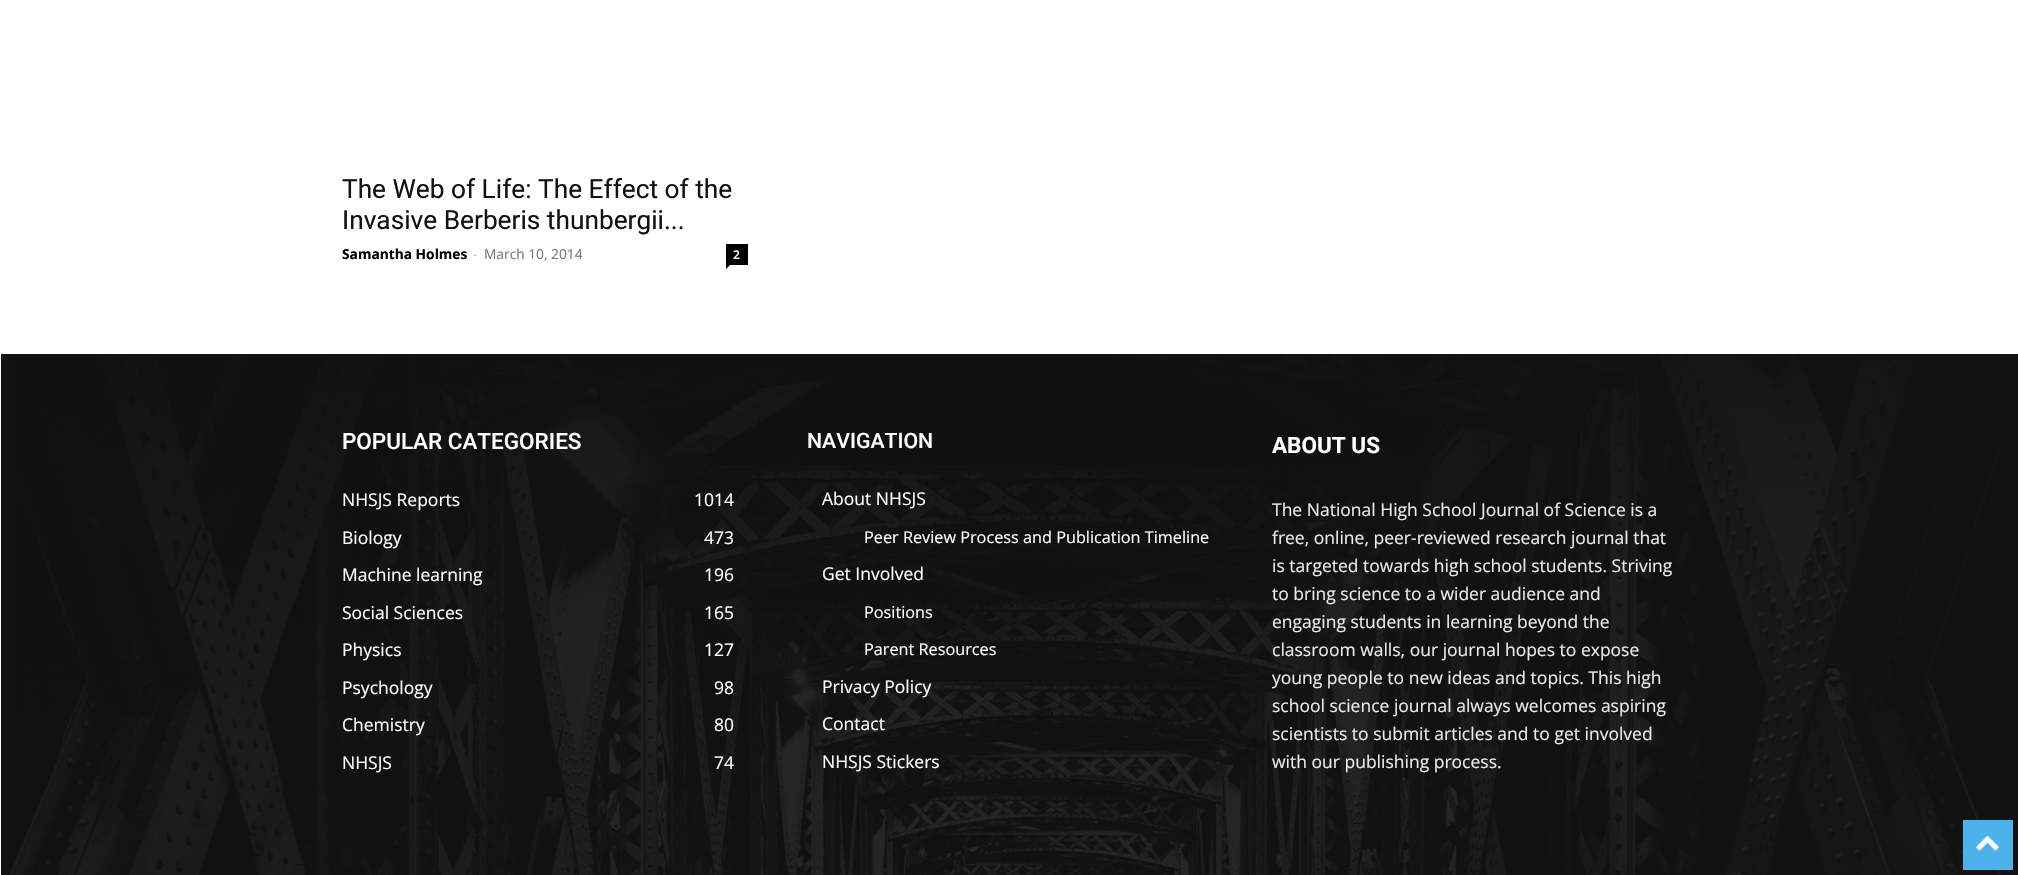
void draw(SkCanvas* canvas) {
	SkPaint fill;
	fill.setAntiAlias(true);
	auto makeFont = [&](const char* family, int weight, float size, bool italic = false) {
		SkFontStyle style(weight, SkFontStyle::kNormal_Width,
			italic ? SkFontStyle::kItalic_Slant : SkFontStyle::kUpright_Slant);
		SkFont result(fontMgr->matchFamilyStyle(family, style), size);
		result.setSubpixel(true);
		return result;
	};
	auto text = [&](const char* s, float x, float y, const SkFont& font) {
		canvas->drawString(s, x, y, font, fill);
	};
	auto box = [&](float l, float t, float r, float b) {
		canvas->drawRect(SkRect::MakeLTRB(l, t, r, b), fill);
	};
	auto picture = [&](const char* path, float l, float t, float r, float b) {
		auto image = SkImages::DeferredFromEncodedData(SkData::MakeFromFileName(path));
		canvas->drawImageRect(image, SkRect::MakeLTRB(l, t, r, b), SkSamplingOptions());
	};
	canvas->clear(0xFFFFFFFF);
	fill.setColor(0xFF000000);
	box(726, 244, 748, 265);
	canvas->drawPath(SkPathBuilder().moveTo(726, 265).lineTo(730, 265).lineTo(726, 269).close().detach(), fill);
	fill.setColor(0xFF111111);
	box(1, 354, 2018, 875);
	picture("image0.png", 10, 354, 2001, 875);
	fill.setColor(0xFF4DB2EC);
	box(1963, 820, 2013, 870);
	picture("image1.png", 1976, 836, 1999, 851);
	auto font1 = makeFont("Roboto", 400, 26.25f);
	fill.setColor(0xFF111111);
	text("The Web of Life: The Effect of the", 342, 198, font1);
	text("Invasive Berberis thunbergii...", 342, 229, font1);
	auto font2 = makeFont("Open Sans", 700, 13.75f);
	fill.setColor(0xFF000000);
	text("Samantha Holmes", 342, 259, font2);
	auto font3 = makeFont("Open Sans", 400, 13.75f);
	fill.setColor(0xFFCCCCCC);
	text("-", 473, 259, font3);
	fill.setColor(0xFF767676);
	text("March 10, 2014", 484, 259, font3);
	auto font4 = makeFont("Open Sans", 600, 12);
	fill.setColor(0xFFFFFFFF);
	text("2", 733, 259, font4);
	auto font5 = makeFont("Roboto", 500, 22.5f);
	text("POPULAR CATEGORIES", 342, 449, font5);
	auto font6 = makeFont("Open Sans", 400, 17.5f);
	text("NHSJS Reports", 342, 506, font6);
	text("1014", 694, 506, font6);
	text("Biology", 342, 544, font6);
	text("473", 704, 544, font6);
	text("Machine learning", 342, 581, font6);
	text("196", 704, 581, font6);
	text("Social Sciences", 342, 619, font6);
	text("165", 704, 619, font6);
	text("Physics", 342, 656, font6);
	text("127", 704, 656, font6);
	text("Psychology", 342, 694, font6);
	text("98", 714, 694, font6);
	text("Chemistry", 342, 731, font6);
	text("80", 714, 731, font6);
	text("NHSJS", 342, 769, font6);
	text("74", 714, 769, font6);
	auto font7 = makeFont("Roboto", 500, 21.25f);
	text("NAVIGATION", 807, 448, font7);
	text("About NHSJS", 822, 505, font6);
	auto font8 = makeFont("Open Sans", 400, 16.25f);
	text("Peer Review Process and Publication Timeline", 864, 543, font8);
	text("Get Involved", 822, 580, font6);
	text("Positions", 864, 618, font8);
	text("Parent Resources", 864, 655, font8);
	text("Privacy Policy", 822, 693, font6);
	text("Contact", 822, 730, font6);
	text("NHSJS Stickers", 822, 768, font6);
	auto font9 = makeFont("Roboto", 700, 22.5f);
	text("ABOUT US", 1272, 453, font9);
	fill.setColor(0xFFEAEAEA);
	text("The National High School Journal of Science is a", 1272, 516, font6);
	text("free, online, peer-reviewed research journal that", 1272, 544, font6);
	text("is targeted towards high school students. Striving", 1272, 572, font6);
	text("to bring science to a wider audience and", 1272, 600, font6);
	text("engaging students in learning beyond the", 1272, 628, font6);
	text("classroom walls, our journal hopes to expose", 1272, 656, font6);
	text("young people to new ideas and topics. This high", 1272, 684, font6);
	text("school science journal always welcomes aspiring", 1272, 712, font6);
	text("scientists to submit articles and to get involved", 1272, 740, font6);
	text("with our publishing process.", 1272, 768, font6);
}
